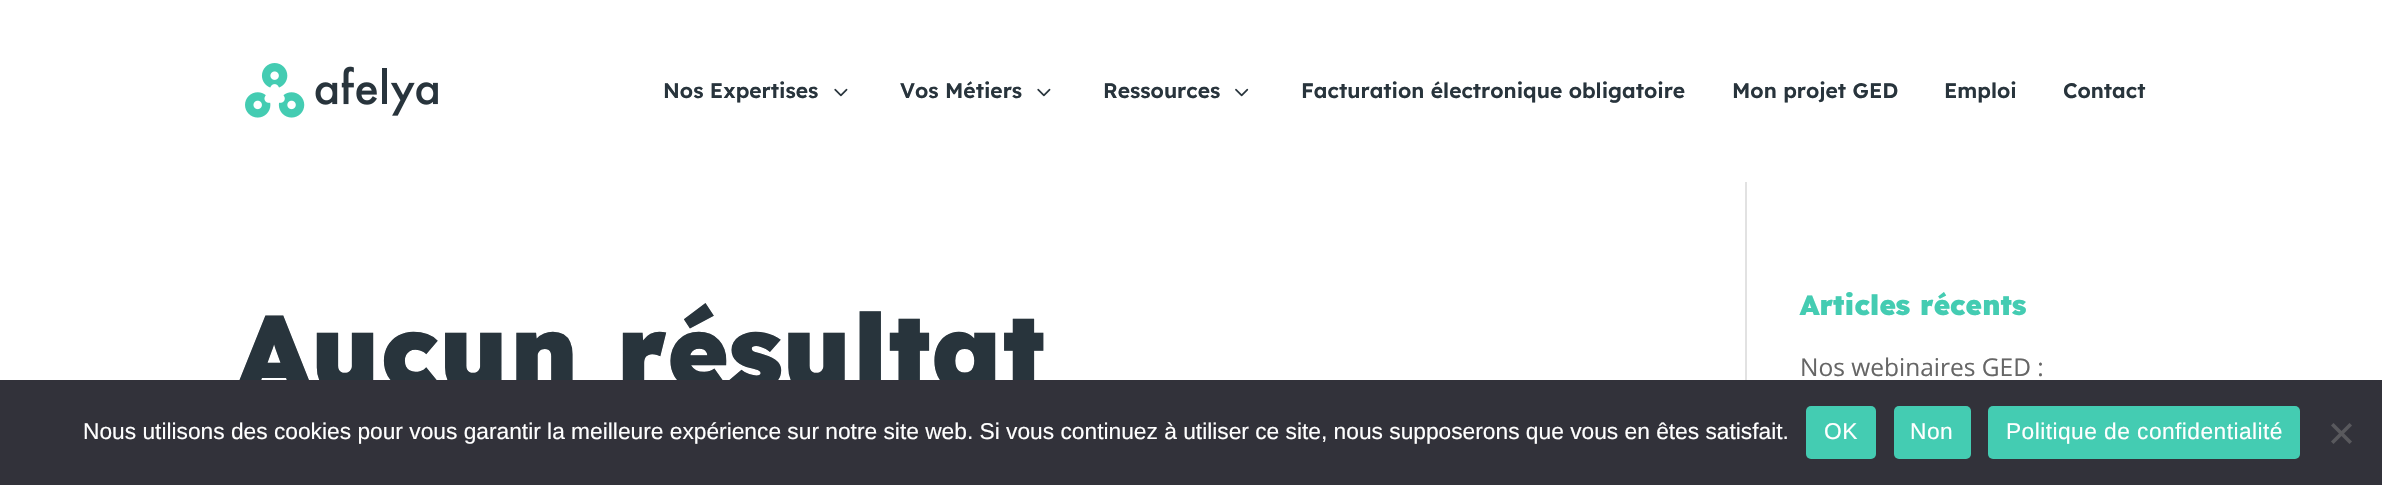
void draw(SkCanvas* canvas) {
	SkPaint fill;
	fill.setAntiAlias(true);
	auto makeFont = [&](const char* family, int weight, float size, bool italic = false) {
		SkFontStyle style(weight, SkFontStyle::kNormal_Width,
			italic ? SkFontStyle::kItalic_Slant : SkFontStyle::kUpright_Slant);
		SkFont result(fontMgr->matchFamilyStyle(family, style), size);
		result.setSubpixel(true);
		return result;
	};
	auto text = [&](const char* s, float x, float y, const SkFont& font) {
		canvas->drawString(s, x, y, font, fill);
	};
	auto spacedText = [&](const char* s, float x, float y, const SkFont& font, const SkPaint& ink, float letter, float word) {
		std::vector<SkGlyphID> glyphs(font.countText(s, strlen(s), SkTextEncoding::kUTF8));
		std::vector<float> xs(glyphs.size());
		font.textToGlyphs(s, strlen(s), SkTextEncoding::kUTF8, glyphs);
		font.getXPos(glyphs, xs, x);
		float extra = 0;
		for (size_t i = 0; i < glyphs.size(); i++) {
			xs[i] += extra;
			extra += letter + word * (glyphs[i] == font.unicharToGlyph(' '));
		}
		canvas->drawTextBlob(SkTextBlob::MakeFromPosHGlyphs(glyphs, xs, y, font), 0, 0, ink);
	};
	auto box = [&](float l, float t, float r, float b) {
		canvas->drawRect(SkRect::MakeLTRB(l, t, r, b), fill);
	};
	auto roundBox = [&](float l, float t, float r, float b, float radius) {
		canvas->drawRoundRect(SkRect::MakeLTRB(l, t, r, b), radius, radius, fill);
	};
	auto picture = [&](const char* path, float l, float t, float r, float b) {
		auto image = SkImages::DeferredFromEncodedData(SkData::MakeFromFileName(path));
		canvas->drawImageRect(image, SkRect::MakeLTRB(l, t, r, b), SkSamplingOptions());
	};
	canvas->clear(0xFFFFFFFF);
	picture("image0.png", 245, 63, 438, 118);
	picture("image1.png", 834, 88, 848, 97);
	picture("image1.png", 1037, 88, 1051, 97);
	picture("image2.png", 1235, 88, 1249, 97);
	fill.setColor(0xFFE2E2E2);
	box(1745, 182, 1747, 380);
	auto font1 = makeFont("Lexend", 600, 21);
	fill.setColor(0xFF28343C);
	text("Nos Expertises", 663, 98, font1);
	text("Vos Métiers", 900, 98, font1);
	text("Ressources", 1103, 98, font1);
	text("Facturation électronique obligatoire", 1301, 98, font1);
	text("Mon projet GED", 1732, 98, font1);
	text("Emploi", 1944, 98, font1);
	text("Contact", 2063, 98, font1);
	auto font2 = makeFont("Lexend", 900, 105);
	text("Aucun résultat", 238, 389, font2);
	auto font3 = makeFont("Lexend", 900, 28);
	fill.setColor(0xFF44CCB2);
	text("Articles récents", 1800, 315, font3);
	auto font4 = makeFont("Open Sans", 400, 24.5f);
	fill.setColor(0xFF666666);
	text("Nos webinaires GED :", 1800, 376, font4);
	fill.setColor(0xFF32323A);
	box(0, 380, 2382, 485);
	auto font5 = makeFont("Liberation Sans", 400, 22.75f);
	fill.setColor(0xFFFFFFFF);
	text("Nous utilisons des cookies pour vous garantir la meilleure expérience sur notre site web. Si vous continuez à utiliser ce site, nous supposerons que vous en êtes satisfait.", 83, 439, font5);
	fill.setColor(0xFF44CCB2);
	roundBox(1806, 406, 1876, 459, 5);
	fill.setColor(0xFFFFFFFF);
	spacedText("OK", 1824, 439, font5, fill, 0.45f, 0);
	fill.setColor(0xFF44CCB2);
	roundBox(1894, 406, 1971, 459, 5);
	fill.setColor(0xFFFFFFFF);
	spacedText("Non", 1910, 439, font5, fill, 0.45f, 0);
	fill.setColor(0xFF44CCB2);
	roundBox(1988, 406, 2300, 459, 5);
	fill.setColor(0xFFFFFFFF);
	spacedText("Politique de confidentialité", 2006, 439, font5, fill, 0.45f, 0);
	fill.setColor(0xFF59595D);
	canvas->drawPath(SkPathBuilder().moveTo(2349.5f, 423).lineTo(2352, 425.5f).lineTo(2333.5f, 444).lineTo(2331, 441.5f).close().detach(), fill);
	canvas->drawPath(SkPathBuilder().moveTo(2331, 425.5f).lineTo(2333.5f, 423).lineTo(2352, 441.5f).lineTo(2349.5f, 444).close().detach(), fill);
}
